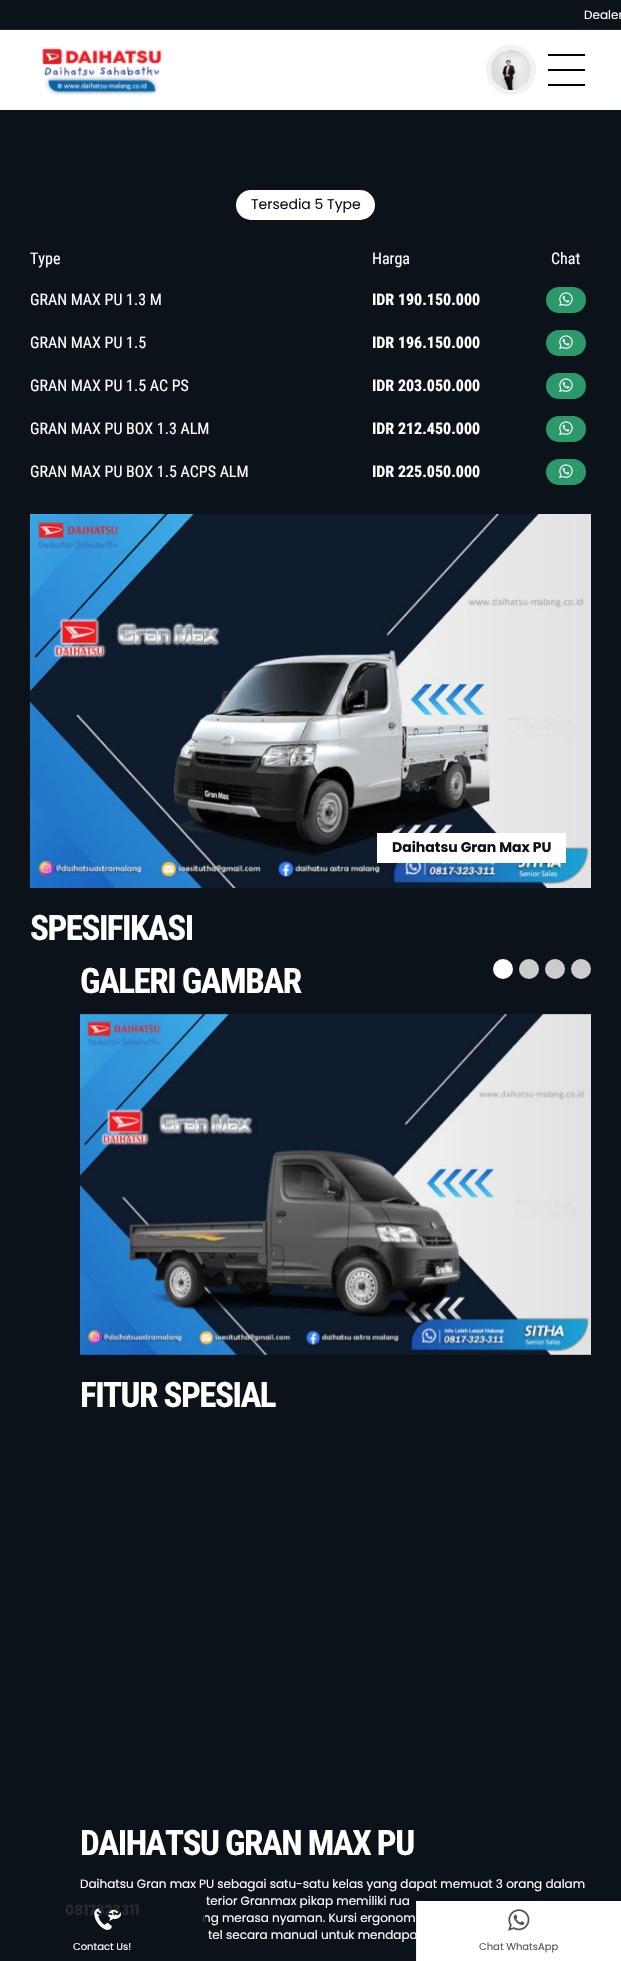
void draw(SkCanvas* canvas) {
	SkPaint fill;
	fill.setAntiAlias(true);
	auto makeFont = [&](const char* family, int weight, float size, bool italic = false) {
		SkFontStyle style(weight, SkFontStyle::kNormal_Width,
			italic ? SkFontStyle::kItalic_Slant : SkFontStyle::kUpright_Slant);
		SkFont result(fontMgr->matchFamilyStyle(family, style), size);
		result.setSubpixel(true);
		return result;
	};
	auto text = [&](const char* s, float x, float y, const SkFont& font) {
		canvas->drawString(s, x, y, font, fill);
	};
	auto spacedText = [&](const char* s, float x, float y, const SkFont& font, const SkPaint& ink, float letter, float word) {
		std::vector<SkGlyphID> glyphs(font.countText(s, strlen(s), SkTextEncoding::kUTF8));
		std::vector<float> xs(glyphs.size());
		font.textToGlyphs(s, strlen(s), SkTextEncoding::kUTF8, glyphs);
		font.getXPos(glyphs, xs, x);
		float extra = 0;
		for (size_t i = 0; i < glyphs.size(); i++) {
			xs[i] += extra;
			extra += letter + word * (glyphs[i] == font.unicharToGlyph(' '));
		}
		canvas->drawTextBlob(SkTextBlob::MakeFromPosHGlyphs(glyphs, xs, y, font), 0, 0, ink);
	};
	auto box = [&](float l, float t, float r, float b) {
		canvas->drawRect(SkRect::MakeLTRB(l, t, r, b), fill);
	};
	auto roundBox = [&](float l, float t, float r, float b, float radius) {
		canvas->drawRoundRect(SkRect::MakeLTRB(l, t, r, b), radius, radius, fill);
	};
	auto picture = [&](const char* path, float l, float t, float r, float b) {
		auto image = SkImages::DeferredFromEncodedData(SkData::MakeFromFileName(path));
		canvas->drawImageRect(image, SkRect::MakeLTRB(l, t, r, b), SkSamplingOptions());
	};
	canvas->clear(0xFF0C1219);
	fill.setColor(0xFFFFFFFF);
	box(0, 30, 621, 110);
	fill.setColor(0xFF242A30);
	box(0, 29, 621, 30);
	picture("image0.png", 40, 47, 163, 95);
	fill.setStyle(SkPaint::kStroke_Style);
	fill.setStrokeWidth(5);
	fill.setColor(0xFFF2F2F2);
	canvas->drawCircle(511, 70, 22.5f, fill);
	picture("image1.png", 491, 50, 531, 90);
	fill.setStyle(SkPaint::kFill_Style);
	fill.setColor(0xFF000000);
	box(548, 54, 585, 56);
	box(548, 84, 585, 86);
	box(548, 69, 585, 71);
	picture("image2.png", 94, 1908, 112, 1930);
	picture("image3.png", 108, 1909, 121, 1921);
	fill.setColor(0xFFFFFFFF);
	box(417, 1901, 621, 1961);
	picture("image4.png", 508, 1909, 530, 1931);
	roundBox(236, 190, 375, 220, 15);
	fill.setColor(0xFF0B1016);
	box(371, 278, 542, 279);
	box(371, 321, 542, 322);
	fill.setColor(0xFF2C996B);
	roundBox(546, 287, 586, 313, 13);
	picture("image5.png", 559, 292, 573, 307);
	fill.setColor(0xFF0B1016);
	box(371, 364, 542, 365);
	fill.setColor(0xFF2C996B);
	roundBox(546, 330, 586, 356, 13);
	picture("image5.png", 559, 335, 573, 350);
	fill.setColor(0xFF0B1016);
	box(371, 407, 542, 408);
	fill.setColor(0xFF2C996B);
	roundBox(546, 373, 586, 399, 13);
	picture("image5.png", 559, 378, 573, 393);
	fill.setColor(0xFF0B1016);
	box(371, 450, 542, 451);
	fill.setColor(0xFF2C996B);
	roundBox(546, 416, 586, 442, 13);
	picture("image5.png", 559, 421, 573, 436);
	fill.setColor(0xFF0B1016);
	box(371, 493, 542, 494);
	fill.setColor(0xFF2C996B);
	roundBox(546, 459, 586, 485, 13);
	picture("image5.png", 559, 464, 573, 479);
	picture("image6.png", 30, 514, 591, 888);
	fill.setColor(0xFFFFFFFF);
	box(377, 833, 566, 863);
	canvas->drawCircle(503, 969, 10, fill);
	fill.setColor(0xFFCCCCCC);
	canvas->drawCircle(529, 969, 10, fill);
	canvas->drawCircle(555, 969, 10, fill);
	canvas->drawCircle(581, 969, 10, fill);
	picture("image7.png", 80, 1014, 591, 1355);
	auto font1 = makeFont("Poppins", 400, 12);
	fill.setColor(0xFFFFFFFF);
	text("Dealer", 584, 19, font1);
	auto font2 = makeFont("Poppins", 700, 14);
	fill.setColor(0xFF242930);
	text("0817323311", 65, 1915, font2);
	auto font3 = makeFont("Poppins", 400, 10);
	fill.setColor(0xFFFFFFFF);
	text("Contact Us!", 73, 1950, font3);
	fill.setColor(0xFF555555);
	text("Chat WhatsApp", 479, 1950, font3);
	auto font4 = makeFont("Poppins", 400, 14);
	fill.setColor(0xFF0C1219);
	text("Tersedia 5 Type", 251, 209, font4);
	auto font5 = makeFont("Roboto Condensed", 400, 16);
	fill.setColor(0xFFFFFFFF);
	text("Type", 30, 264, font5);
	text("Harga", 372, 264, font5);
	text("Chat", 551, 264, font5);
	text("GRAN MAX PU 1.3 M", 30, 305, font5);
	auto font6 = makeFont("Roboto Condensed", 700, 16);
	text("IDR 190.150.000", 372, 305, font6);
	text("GRAN MAX PU 1.5", 30, 348, font5);
	text("IDR 196.150.000", 372, 348, font6);
	text("GRAN MAX PU 1.5 AC PS", 30, 391, font5);
	text("IDR 203.050.000", 372, 391, font6);
	text("GRAN MAX PU BOX 1.3 ALM", 30, 434, font5);
	text("IDR 212.450.000", 372, 434, font6);
	text("GRAN MAX PU BOX 1.5 ACPS ALM", 30, 477, font5);
	text("IDR 225.050.000", 372, 477, font6);
	fill.setColor(0xFF0C1219);
	text("Daihatsu Gran Max PU", 392, 852, font2);
	auto font7 = makeFont("Roboto Condensed", 700, 35);
	fill.setColor(0xFFFFFFFF);
	spacedText("SPESIFIKASI", 30, 940, font7, fill, -1.5f, 0);
	spacedText("GALERI GAMBAR", 80, 993, font7, fill, -1.5f, 0);
	spacedText("FITUR SPESIAL", 80, 1407, font7, fill, -1.5f, 0);
	spacedText("DAIHATSU GRAN MAX PU", 80, 1855, font7, fill, -1.5f, 0);
	text("Daihatsu Gran max PU sebagai satu-satu kelas yang dapat memuat 3 orang dalam", 80, 1888, font1);
	text("terior Granmax pikap memiliki rua", 206, 1905, font1);
	text("ng merasa nyaman. Kursi ergonom", 203, 1922, font1);
	fill.setColor(0xFF0C1219);
	box(204, 1915, 205, 1922);
	fill.setColor(0xFFFFFFFF);
	text("tel secara manual untuk mendapa", 208, 1939, font1);
	fill.setColor(0xFFF2F2F2);
	box(416, 1901, 417, 1961);
}
